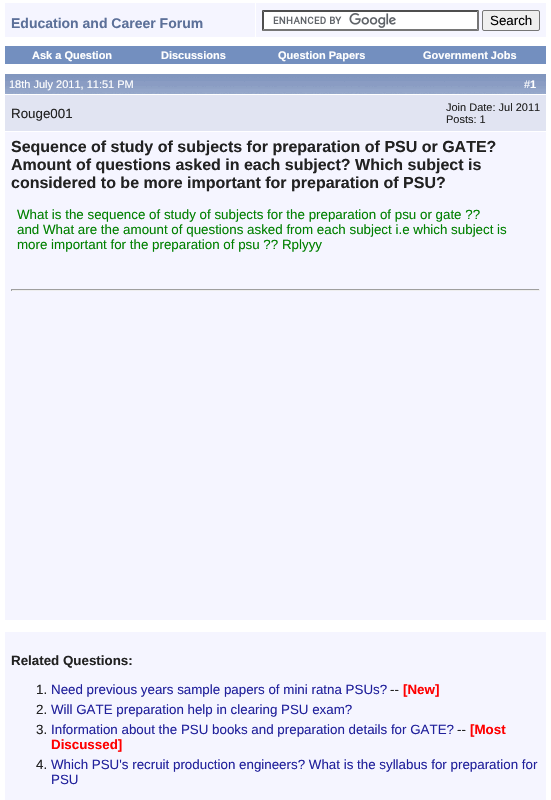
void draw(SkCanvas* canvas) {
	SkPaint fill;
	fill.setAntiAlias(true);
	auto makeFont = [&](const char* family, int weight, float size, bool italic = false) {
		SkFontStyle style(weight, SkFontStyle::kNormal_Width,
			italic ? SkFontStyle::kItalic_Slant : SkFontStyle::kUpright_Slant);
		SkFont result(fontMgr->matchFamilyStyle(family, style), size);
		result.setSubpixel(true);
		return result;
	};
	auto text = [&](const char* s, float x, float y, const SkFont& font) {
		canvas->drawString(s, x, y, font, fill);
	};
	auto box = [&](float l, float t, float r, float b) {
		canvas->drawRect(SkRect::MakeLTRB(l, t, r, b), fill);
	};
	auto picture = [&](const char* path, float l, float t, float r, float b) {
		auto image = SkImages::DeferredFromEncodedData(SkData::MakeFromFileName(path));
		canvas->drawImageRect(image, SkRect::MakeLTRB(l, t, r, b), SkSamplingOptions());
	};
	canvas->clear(0xFFFFFFFF);
	fill.setColor(0xFFF5F5FF);
	box(5, 3, 255, 37);
	box(256, 3, 546, 37);
	fill.setColor(0xFFFFFFFF);
	box(262, 10, 479, 31);
	picture("image0.png", 273, 13, 396, 28);
	fill.setColor(0xFF4F4F4F);
	canvas->drawPath(SkPathBuilder().moveTo(262, 10).lineTo(479, 10).lineTo(477, 12).lineTo(264, 12).close().detach(), fill);
	fill.setColor(0xFF767676);
	canvas->drawPath(SkPathBuilder().moveTo(479, 10).lineTo(479, 31).lineTo(477, 29).lineTo(477, 12).close().detach(), fill);
	canvas->drawPath(SkPathBuilder().moveTo(479, 31).lineTo(262, 31).lineTo(264, 29).lineTo(477, 29).close().detach(), fill);
	fill.setColor(0xFF4F4F4F);
	canvas->drawPath(SkPathBuilder().moveTo(262, 31).lineTo(262, 10).lineTo(264, 12).lineTo(264, 29).close().detach(), fill);
	fill.setColor(0xFFEFEFEF);
	canvas->drawRoundRect(SkRect::MakeLTRB(482.5f, 10.5f, 539.5f, 30.5f), 1.5f, 1.5f, fill);
	fill.setStyle(SkPaint::kStroke_Style);
	fill.setStrokeWidth(1);
	fill.setColor(0xFF767676);
	canvas->drawRoundRect(SkRect::MakeLTRB(482.5f, 10.5f, 539.5f, 30.5f), 1.5f, 1.5f, fill);
	fill.setStyle(SkPaint::kFill_Style);
	fill.setColor(0xFF738FBF);
	box(5, 46, 546, 64);
	picture("image1.png", 5, 74, 546, 94);
	fill.setColor(0xFFE1E4F2);
	box(5, 95, 546, 131);
	fill.setColor(0xFFF5F5FF);
	box(5, 132, 546, 620);
	fill.setColor(0xFF9F9F9F);
	box(11, 289, 540, 290);
	fill.setColor(0xFFEEEEEE);
	box(539, 289, 540, 291);
	box(11, 290, 540, 291);
	fill.setColor(0xFF9F9F9F);
	box(11, 289, 12, 291);
	fill.setColor(0xFFF5F5FF);
	box(5, 632, 546, 800);
	auto font1 = makeFont("Liberation Sans", 700, 14);
	fill.setColor(0xFF5C7099);
	text("Education and Career Forum", 11, 28, font1);
	auto font2 = makeFont("Liberation Sans", 400, 13.35f);
	fill.setColor(0xFF000000);
	text("Search", 490, 25, font2);
	auto font3 = makeFont("Liberation Sans", 700, 11);
	fill.setColor(0xFFFFFFFF);
	text("Ask a Question", 32, 59, font3);
	text("Discussions", 161, 59, font3);
	text("Question Papers", 278, 59, font3);
	text("Government Jobs", 423, 59, font3);
	auto font4 = makeFont("Liberation Sans", 400, 11);
	text("18th July 2011, 11:51 PM", 9, 88, font4);
	text("#", 524, 88, font4);
	text("1", 530, 88, font3);
	fill.setColor(0xFF222222);
	text("Rouge001", 11, 118, font2);
	text("Join Date: Jul 2011", 446, 111, font4);
	text("Posts: 1", 446, 123, font4);
	auto font5 = makeFont("Liberation Sans", 700, 16);
	text("Sequence of study of subjects for preparation of PSU or GATE?", 11, 152, font5);
	text("Amount of questions asked in each subject? Which subject is", 11, 170, font5);
	text("considered to be more important for preparation of PSU?", 11, 188, font5);
	fill.setColor(0xFF008000);
	text("What is the sequence of study of subjects for the preparation of psu or gate ?\077", 17, 219, font2);
	text("and What are the amount of questions asked from each subject i.e which subject is", 17, 234, font2);
	text("more important for the preparation of psu ?\077 Rplyyy", 17, 249, font2);
	auto font6 = makeFont("Liberation Sans", 700, 13.35f);
	fill.setColor(0xFF222222);
	text("Related Questions:", 11, 665, font6);
	text("1.", 36, 694, font2);
	fill.setColor(0xFF22229C);
	text("Need previous years sample papers of mini ratna PSUs?", 51, 694, font2);
	fill.setColor(0xFF222222);
	text("--", 390, 694, font2);
	fill.setColor(0xFFFF0000);
	text("[New]", 403, 694, font6);
	fill.setColor(0xFF222222);
	text("2.", 36, 714, font2);
	fill.setColor(0xFF22229C);
	text("Will GATE preparation help in clearing PSU exam?", 51, 714, font2);
	fill.setColor(0xFF222222);
	text("3.", 36, 734, font2);
	fill.setColor(0xFF22229C);
	text("Information about the PSU books and preparation details for GATE?", 51, 734, font2);
	fill.setColor(0xFF222222);
	text("--", 457, 734, font2);
	fill.setColor(0xFFFF0000);
	text("[Most", 470, 734, font6);
	text("Discussed]", 51, 749, font6);
	fill.setColor(0xFF222222);
	text("4.", 36, 769, font2);
	fill.setColor(0xFF22229C);
	text("Which PSU's recruit production engineers? What is the syllabus for preparation for", 51, 769, font2);
	text("PSU", 51, 784, font2);
}
